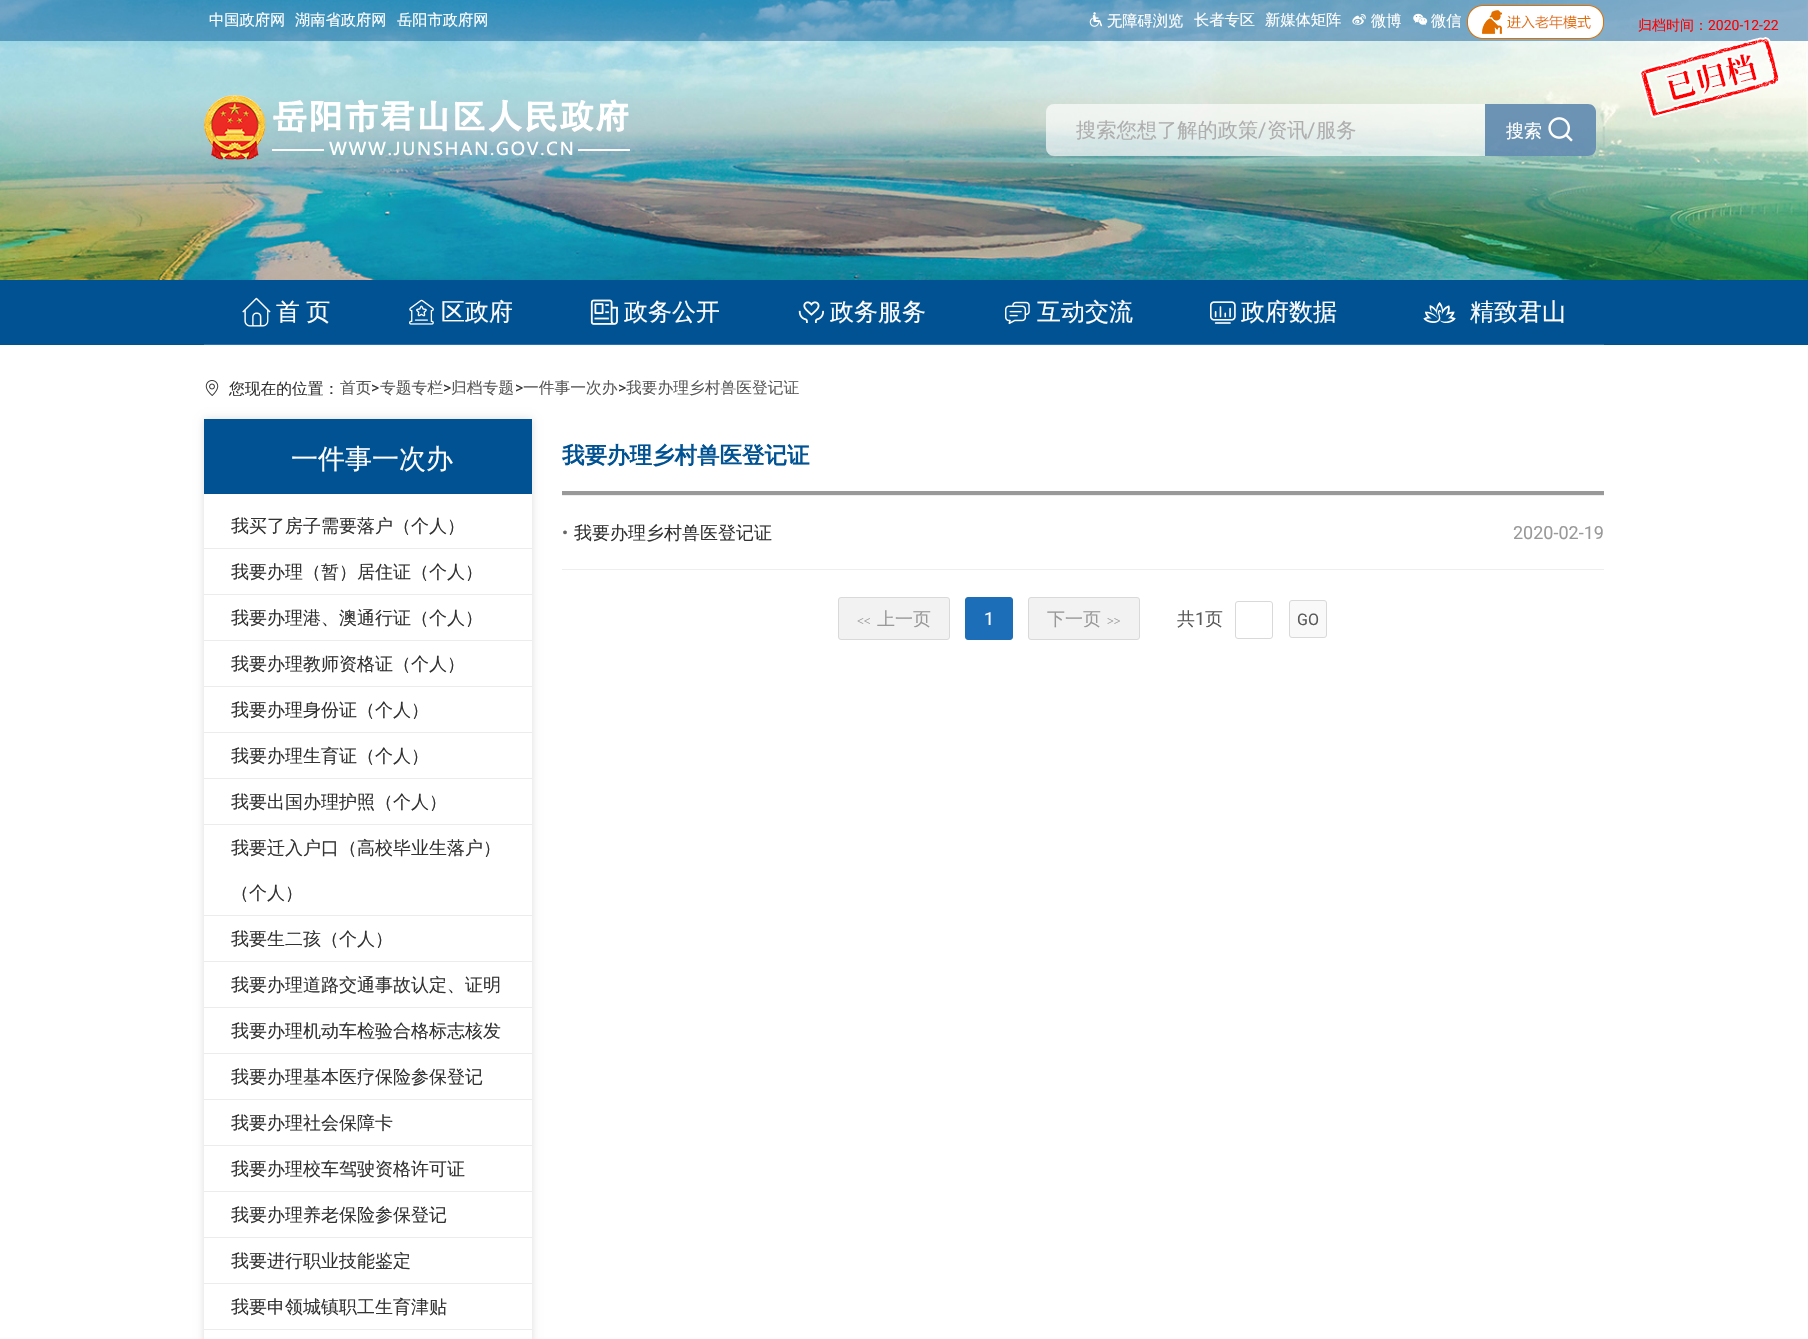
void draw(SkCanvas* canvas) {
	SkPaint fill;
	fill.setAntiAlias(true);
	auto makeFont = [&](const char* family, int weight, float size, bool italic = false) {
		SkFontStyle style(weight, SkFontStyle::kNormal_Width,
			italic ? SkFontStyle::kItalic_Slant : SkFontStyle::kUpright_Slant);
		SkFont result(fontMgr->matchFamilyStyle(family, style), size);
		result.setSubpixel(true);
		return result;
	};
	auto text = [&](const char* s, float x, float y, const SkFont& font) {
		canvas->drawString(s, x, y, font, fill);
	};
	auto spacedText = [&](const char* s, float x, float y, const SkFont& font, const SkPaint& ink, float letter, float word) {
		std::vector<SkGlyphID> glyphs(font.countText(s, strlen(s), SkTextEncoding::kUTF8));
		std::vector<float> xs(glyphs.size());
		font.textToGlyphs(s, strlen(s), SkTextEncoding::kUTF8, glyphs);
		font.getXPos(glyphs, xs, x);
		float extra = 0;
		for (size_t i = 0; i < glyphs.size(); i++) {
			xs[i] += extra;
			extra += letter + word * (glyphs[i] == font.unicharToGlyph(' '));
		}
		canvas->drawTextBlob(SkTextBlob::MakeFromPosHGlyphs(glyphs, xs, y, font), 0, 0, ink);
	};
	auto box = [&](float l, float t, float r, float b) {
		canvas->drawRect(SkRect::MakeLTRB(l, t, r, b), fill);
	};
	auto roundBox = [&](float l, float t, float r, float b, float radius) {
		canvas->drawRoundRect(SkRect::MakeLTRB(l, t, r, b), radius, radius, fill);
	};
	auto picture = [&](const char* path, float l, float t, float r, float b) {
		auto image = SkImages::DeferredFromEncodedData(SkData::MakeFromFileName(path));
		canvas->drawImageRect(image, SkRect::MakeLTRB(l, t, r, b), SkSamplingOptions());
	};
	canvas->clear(0xFFFFFFFF);
	picture("image0.png", 0, 0, 1808, 280);
	fill.setColor(0x73015293);
	box(0, 0, 1808, 41);
	picture("image1.png", 1089, 12, 1102, 27);
	picture("image2.png", 1352, 14, 1366, 25);
	picture("image3.png", 1413, 13, 1428, 26);
	picture("image4.png", 1467, 5, 1604, 39);
	picture("image5.png", 204, 95, 630, 160);
	fill.setColor(0xA8FFFFFF);
	roundBox(1046, 104, 1596, 156, 8);
	fill.setColor(0xCC4A79A4);
	canvas->drawPath(SkPathBuilder().moveTo(1485, 104).lineTo(1588, 104).cubicTo(1592.5f, 104, 1596, 107.5f, 1596, 112).lineTo(1596, 148).cubicTo(1596, 152.5f, 1592.5f, 156, 1588, 156).lineTo(1485, 156).close().detach(), fill);
	picture("image6.png", 1548, 117, 1573, 142);
	picture("image7.png", 1639, 37, 1780, 118);
	fill.setColor(0xFF015293);
	box(0, 280, 1808, 345);
	fill.setColor(0xFF2173B5);
	box(204, 344, 1604, 345);
	picture("image8.png", 242, 297, 271, 327);
	picture("image9.png", 409, 299, 434, 325);
	picture("image10.png", 590, 299, 618, 325);
	picture("image11.png", 798, 301, 824, 323);
	picture("image12.png", 1005, 301, 1030, 325);
	picture("image13.png", 1210, 301, 1236, 324);
	picture("image14.png", 1423, 302, 1456, 324);
	picture("image15.png", 205, 380, 219, 396);
	canvas->save();
	canvas->clipPath(SkPathBuilder(SkPathFillType::kEvenOdd).moveTo(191, 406).lineTo(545, 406).lineTo(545, 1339).lineTo(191, 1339).close().moveTo(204, 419).lineTo(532, 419).lineTo(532, 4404).lineTo(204, 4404).close().detach(), true);
	fill.setColor(0xFFDDDDDD);
	fill.setMaskFilter(SkMaskFilter::MakeBlur(kNormal_SkBlurStyle, 4));
	canvas->drawRect(SkRect::MakeLTRB(204, 419, 532, 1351), fill);
	fill.setMaskFilter(nullptr);
	canvas->restore();
	fill.setColor(0xFF015293);
	box(204, 419, 532, 494);
	fill.setColor(0xFFECECEC);
	box(204, 548, 532, 549);
	box(204, 594, 532, 595);
	box(204, 640, 532, 641);
	box(204, 686, 532, 687);
	box(204, 732, 532, 733);
	box(204, 778, 532, 779);
	box(204, 824, 532, 825);
	box(204, 915, 532, 916);
	box(204, 961, 532, 962);
	box(204, 1007, 532, 1008);
	box(204, 1053, 532, 1054);
	box(204, 1099, 532, 1100);
	box(204, 1145, 532, 1146);
	box(204, 1191, 532, 1192);
	box(204, 1237, 532, 1238);
	box(204, 1283, 532, 1284);
	box(204, 1329, 532, 1330);
	fill.setColor(0xFF999999);
	box(562, 491, 1604, 495);
	fill.setColor(0xFFEEEEEE);
	box(562, 495, 1604, 496);
	box(562, 569, 1604, 570);
	fill.setColor(0xFFF2F2F2);
	canvas->drawRoundRect(SkRect::MakeLTRB(838.5f, 597.5f, 949.5f, 639.5f), 2.5f, 2.5f, fill);
	fill.setStyle(SkPaint::kStroke_Style);
	fill.setStrokeWidth(1);
	fill.setColor(0xFFD9D9D9);
	canvas->drawRoundRect(SkRect::MakeLTRB(838.5f, 597.5f, 949.5f, 639.5f), 2.5f, 2.5f, fill);
	fill.setStyle(SkPaint::kFill_Style);
	fill.setColor(0xFF1C6EB8);
	canvas->drawRoundRect(SkRect::MakeLTRB(965.5f, 597.5f, 1012.5f, 639.5f), 2.5f, 2.5f, fill);
	fill.setStyle(SkPaint::kStroke_Style);
	canvas->drawRoundRect(SkRect::MakeLTRB(965.5f, 597.5f, 1012.5f, 639.5f), 2.5f, 2.5f, fill);
	fill.setStyle(SkPaint::kFill_Style);
	fill.setColor(0xFFF2F2F2);
	canvas->drawRoundRect(SkRect::MakeLTRB(1028.5f, 597.5f, 1139.5f, 639.5f), 2.5f, 2.5f, fill);
	fill.setStyle(SkPaint::kStroke_Style);
	fill.setColor(0xFFD9D9D9);
	canvas->drawRoundRect(SkRect::MakeLTRB(1028.5f, 597.5f, 1139.5f, 639.5f), 2.5f, 2.5f, fill);
	canvas->drawRoundRect(SkRect::MakeLTRB(1235.5f, 601.5f, 1272.5f, 638.5f), 2.5f, 2.5f, fill);
	fill.setStyle(SkPaint::kFill_Style);
	fill.setColor(0xFFF9F9F9);
	canvas->drawRoundRect(SkRect::MakeLTRB(1289.5f, 600.5f, 1326.5f, 637.5f), 2.5f, 2.5f, fill);
	fill.setStyle(SkPaint::kStroke_Style);
	fill.setColor(0xFFD9D9D9);
	canvas->drawRoundRect(SkRect::MakeLTRB(1289.5f, 600.5f, 1326.5f, 637.5f), 2.5f, 2.5f, fill);
	auto font1 = makeFont("WenQuanYi Zen Hei", 500, 15.25f);
	fill.setStyle(SkPaint::kFill_Style);
	fill.setColor(0xFFFFFFFF);
	text("中国政府网", 209, 25, font1);
	text("湖南省政府网", 295, 25, font1);
	text("岳阳市政府网", 397, 25, font1);
	text("无障碍浏览", 1107, 26, font1);
	text("长者专区", 1194, 25, font1);
	text("新媒体矩阵", 1265, 25, font1);
	text("微博", 1371, 26, font1);
	text("微信", 1431, 26, font1);
	auto font2 = makeFont("WenQuanYi Zen Hei", 500, 20.25f);
	fill.setColor(0xFFAEAEAE);
	text("搜索您想了解的政策", 1076, 137, font2);
	auto font3 = makeFont("Roboto", 400, 20.25f);
	text("/", 1258, 137, font3);
	text("资讯", 1267, 137, font2);
	text("/", 1307, 137, font3);
	text("服务", 1316, 137, font2);
	auto font4 = makeFont("WenQuanYi Zen Hei", 500, 18);
	fill.setColor(0xFFFFFFFF);
	text("搜索", 1506, 137, font4);
	auto font5 = makeFont("WenQuanYi Zen Hei", 500, 14);
	fill.setColor(0xFFFF0000);
	text("归档时间：", 1638, 30, font5);
	auto font6 = makeFont("Roboto", 400, 14);
	text("2020-12-22", 1708, 30, font6);
	auto font7 = makeFont("WenQuanYi Zen Hei", 500, 24);
	fill.setColor(0xFFFFFFFF);
	spacedText("首 页", 276, 320, font7, fill, 0, -1);
	text("区政府", 441, 320, font7);
	text("政务公开", 624, 320, font7);
	text("政务服务", 830, 320, font7);
	text("互动交流", 1037, 320, font7);
	text("政府数据", 1241, 320, font7);
	text("精致君山", 1470, 320, font7);
	auto font8 = makeFont("WenQuanYi Zen Hei", 500, 15.75f);
	fill.setColor(0xFF333333);
	text("您现在的位置：", 229, 394, font8);
	fill.setColor(0xFF595959);
	text("首页", 340, 393, font8);
	auto font9 = makeFont("Roboto", 400, 15.75f);
	fill.setColor(0xFF333333);
	text(">", 371, 393, font9);
	fill.setColor(0xFF595959);
	text("专题专栏", 380, 393, font8);
	fill.setColor(0xFF333333);
	text(">", 443, 393, font9);
	fill.setColor(0xFF595959);
	text("归档专题", 451, 393, font8);
	fill.setColor(0xFF333333);
	text(">", 515, 393, font9);
	fill.setColor(0xFF595959);
	text("一件事一次办", 523, 393, font8);
	fill.setColor(0xFF333333);
	text(">", 618, 393, font9);
	fill.setColor(0xFF595959);
	text("我要办理乡村兽医登记证", 626, 393, font8);
	auto font10 = makeFont("WenQuanYi Zen Hei", 500, 27);
	fill.setColor(0xFFFFFFFF);
	text("一件事一次办", 291, 468, font10);
	fill.setColor(0xFF333333);
	text("我买了房子需要落户（个人）", 231, 532, font4);
	text("我要办理（暂）居住证（个人）", 231, 578, font4);
	text("我要办理港、澳通行证（个人）", 231, 624, font4);
	text("我要办理教师资格证（个人）", 231, 670, font4);
	text("我要办理身份证（个人）", 231, 716, font4);
	text("我要办理生育证（个人）", 231, 762, font4);
	text("我要出国办理护照（个人）", 231, 808, font4);
	text("我要迁入户口（高校毕业生落户）", 231, 854, font4);
	text("（个人）", 231, 899, font4);
	text("我要生二孩（个人）", 231, 945, font4);
	text("我要办理道路交通事故认定、证明", 231, 991, font4);
	text("我要办理机动车检验合格标志核发", 231, 1037, font4);
	text("我要办理基本医疗保险参保登记", 231, 1083, font4);
	text("我要办理社会保障卡", 231, 1129, font4);
	text("我要办理校车驾驶资格许可证", 231, 1175, font4);
	text("我要办理养老保险参保登记", 231, 1221, font4);
	text("我要进行职业技能鉴定", 231, 1267, font4);
	text("我要申领城镇职工生育津贴", 231, 1313, font4);
	auto font11 = makeFont("WenQuanYi Zen Hei", 700, 22.5f);
	fill.setColor(0xFF015293);
	text("我要办理乡村兽医登记证", 562, 463, font11);
	auto font12 = makeFont("Roboto", 400, 18);
	fill.setColor(0xFF666666);
	text("•", 562, 539, font12);
	fill.setColor(0xFF333333);
	text("我要办理乡村兽医登记证", 574, 539, font4);
	fill.setColor(0xFF999999);
	text("2020-02-19", 1513, 539, font12);
	auto font13 = makeFont("Liberation Serif", 400, 12);
	text("<<", 857, 625, font13);
	text("上一页", 877, 625, font4);
	fill.setColor(0xFFFFFFFF);
	text("1", 984, 625, font12);
	fill.setColor(0xFF999999);
	text("下一页", 1047, 625, font4);
	text(">>", 1107, 625, font13);
	fill.setColor(0xFF595959);
	text("共", 1177, 625, font4);
	text("1", 1195, 625, font12);
	text("页", 1205, 625, font4);
	auto font14 = makeFont("Roboto", 400, 16);
	text("GO", 1297, 625, font14);
}
